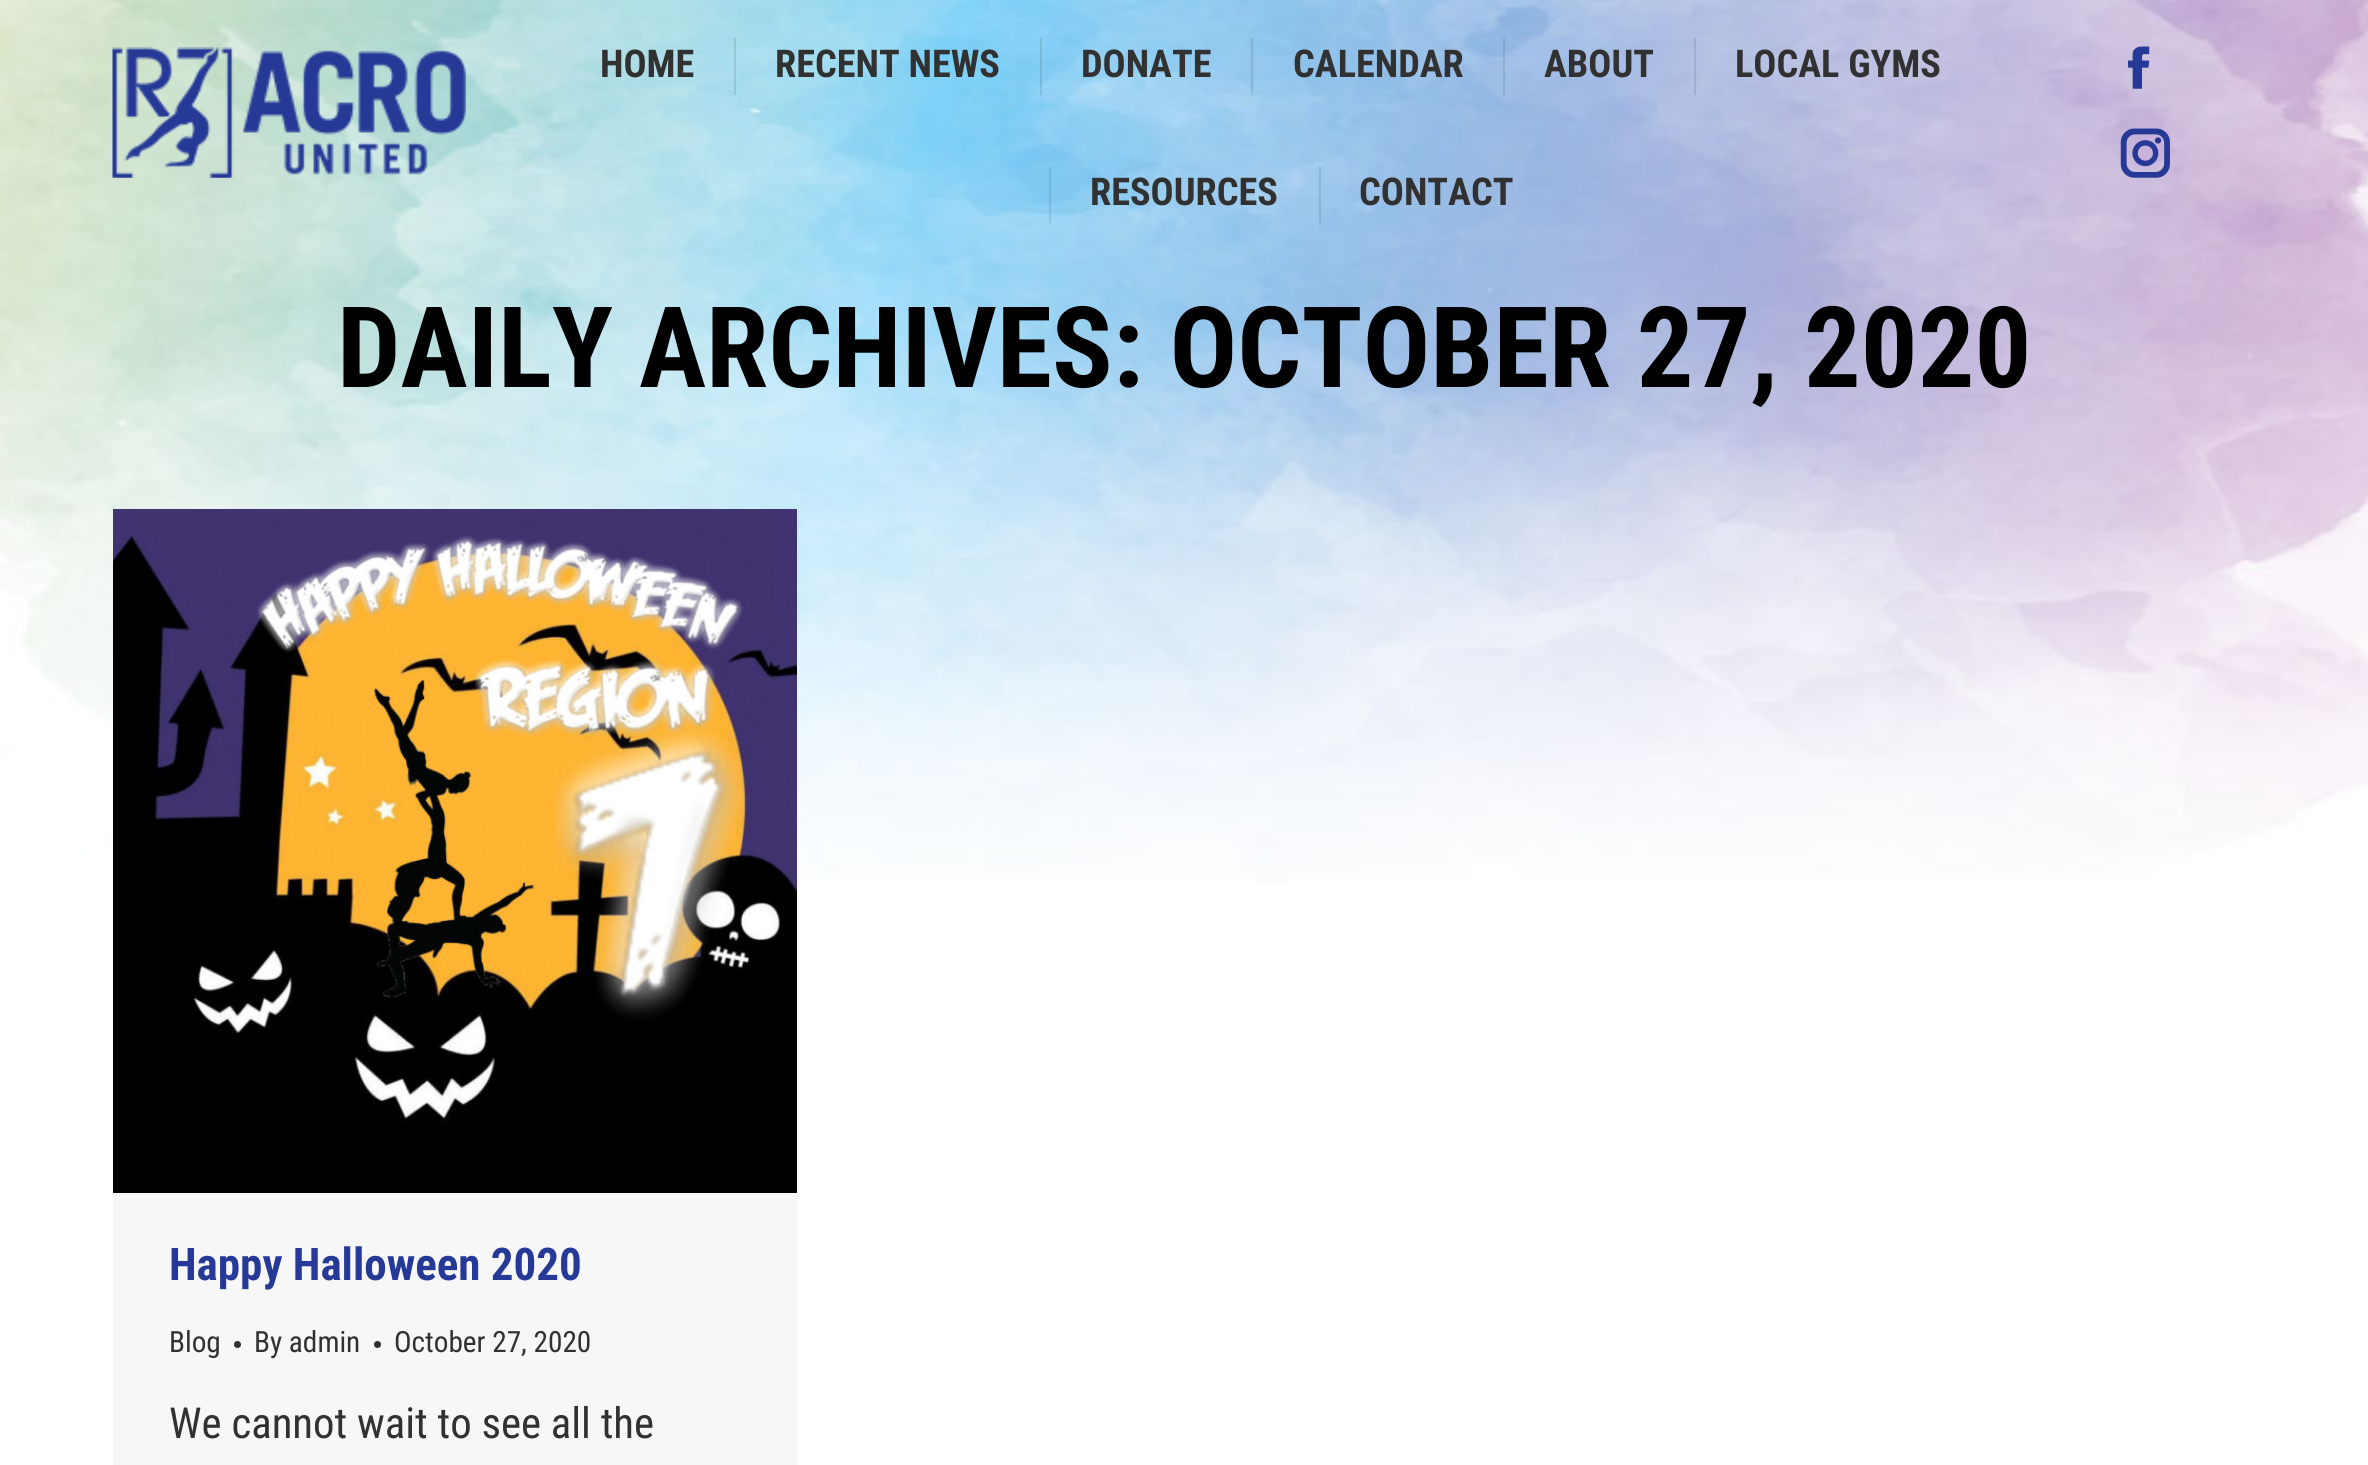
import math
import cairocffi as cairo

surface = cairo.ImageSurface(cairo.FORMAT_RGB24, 2368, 1465)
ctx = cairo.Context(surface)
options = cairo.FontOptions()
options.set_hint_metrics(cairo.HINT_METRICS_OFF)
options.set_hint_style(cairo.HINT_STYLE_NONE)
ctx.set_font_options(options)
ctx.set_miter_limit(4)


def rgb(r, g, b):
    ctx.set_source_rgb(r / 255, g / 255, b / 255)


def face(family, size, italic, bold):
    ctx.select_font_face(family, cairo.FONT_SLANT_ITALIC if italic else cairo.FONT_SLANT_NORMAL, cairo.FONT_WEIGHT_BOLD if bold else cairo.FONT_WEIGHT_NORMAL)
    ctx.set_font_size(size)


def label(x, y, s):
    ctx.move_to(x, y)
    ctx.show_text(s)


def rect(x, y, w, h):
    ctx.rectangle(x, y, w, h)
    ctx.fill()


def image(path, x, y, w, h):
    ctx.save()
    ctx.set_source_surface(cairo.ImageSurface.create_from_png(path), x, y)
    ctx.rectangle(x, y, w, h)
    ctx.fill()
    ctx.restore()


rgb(255, 255, 255)
ctx.paint()
image('image0.png', 0, 0, 2368, 882)
image('image1.png', 112, 47, 354, 131)
face('Roboto Condensed', 38.25, 0, 1)
rgb(49, 49, 49)
label(600, 77, 'HOME')
ctx.set_source_rgba(0.067, 0.067, 0.067, 0.11)
rect(734, 38, 2, 57)
rgb(49, 49, 49)
label(775, 77, 'RECENT NEWS')
ctx.set_source_rgba(0.067, 0.067, 0.067, 0.11)
rect(1040, 38, 2, 57)
rgb(49, 49, 49)
label(1081, 77, 'DONATE')
ctx.set_source_rgba(0.067, 0.067, 0.067, 0.11)
rect(1251, 38, 2, 57)
rgb(49, 49, 49)
label(1293, 77, 'CALENDAR')
ctx.set_source_rgba(0.067, 0.067, 0.067, 0.11)
rect(1503, 38, 2, 57)
rgb(49, 49, 49)
label(1544, 77, 'ABOUT')
rgb(160, 173, 204)
rect(1694, 38, 2, 57)
rgb(49, 49, 49)
label(1735, 77, 'LOCAL GYMS')
ctx.set_source_rgba(0.067, 0.067, 0.067, 0.11)
rect(1049, 167, 2, 56)
rgb(49, 49, 49)
label(1090, 205, 'RESOURCES')
ctx.set_source_rgba(0.067, 0.067, 0.067, 0.11)
rect(1319, 167, 2, 56)
rgb(49, 49, 49)
label(1359, 205, 'CONTACT')
image('image2.png', 2128, 46, 22, 43)
image('image3.png', 2120, 128, 50, 50)
face('Roboto Condensed', 112.5, 0, 1)
rgb(0, 0, 0)
label(337, 387, 'DAILY ARCHIVES: OCTOBER 27, 2020')
rgb(247, 247, 247)
rect(113, 1193, 684, 272)
image('image4.png', 113, 509, 684, 684)
face('Roboto Condensed', 45, 0, 1)
rgb(38, 57, 151)
label(169, 1280, 'Happy Halloween 2020')
face('Roboto Condensed', 29.25, 0, 0)
rgb(49, 49, 49)
label(169, 1352, 'Blog')
ctx.new_path()
ctx.arc(237.5, 1344.5, 3.5, 0, 2 * math.pi)
ctx.fill()
label(254, 1352, 'By admin')
ctx.new_path()
ctx.arc(377.5, 1344.5, 3.5, 0, 2 * math.pi)
ctx.fill()
label(394, 1352, 'October 27, 2020')
face('Roboto Condensed', 42.75, 0, 0)
label(169, 1438, 'We cannot wait to see all the')
surface.write_to_png('render.png')
